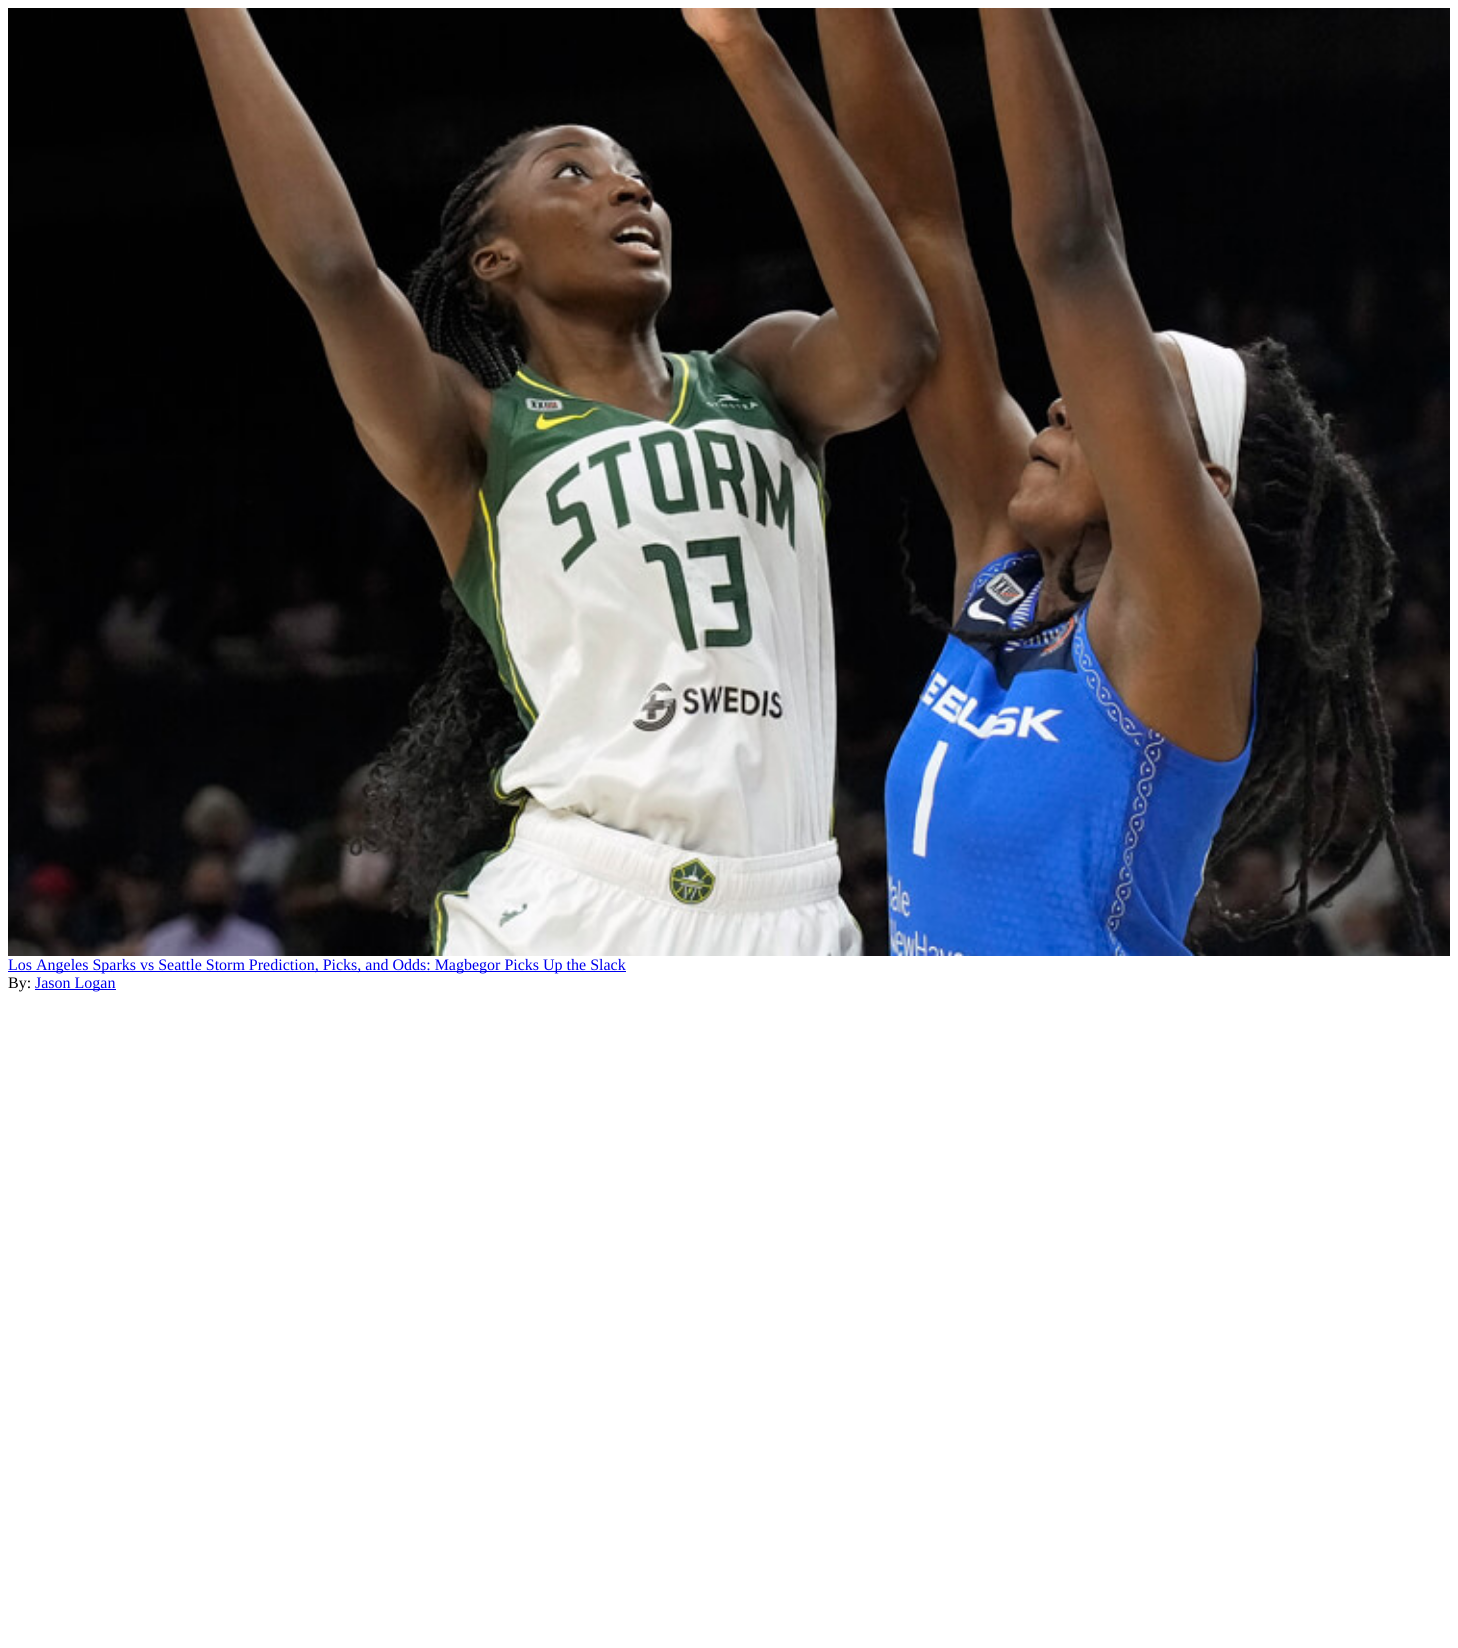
import math
import cairocffi as cairo

surface = cairo.ImageSurface(cairo.FORMAT_RGB24, 1458, 1648)
ctx = cairo.Context(surface)
options = cairo.FontOptions()
options.set_hint_metrics(cairo.HINT_METRICS_OFF)
options.set_hint_style(cairo.HINT_STYLE_NONE)
ctx.set_font_options(options)
ctx.set_miter_limit(4)


def rgb(r, g, b):
    ctx.set_source_rgb(r / 255, g / 255, b / 255)


def face(family, size, italic, bold):
    ctx.select_font_face(family, cairo.FONT_SLANT_ITALIC if italic else cairo.FONT_SLANT_NORMAL, cairo.FONT_WEIGHT_BOLD if bold else cairo.FONT_WEIGHT_NORMAL)
    ctx.set_font_size(size)


def label(x, y, s):
    ctx.move_to(x, y)
    ctx.show_text(s)


def rect(x, y, w, h):
    ctx.rectangle(x, y, w, h)
    ctx.fill()


def image(path, x, y, w, h):
    ctx.save()
    ctx.set_source_surface(cairo.ImageSurface.create_from_png(path), x, y)
    ctx.rectangle(x, y, w, h)
    ctx.fill()
    ctx.restore()


rgb(255, 255, 255)
ctx.paint()
image('image0.png', 8, 8, 1442, 948)
rgb(0, 0, 238)
rect(8, 971, 618, 1)
face('Liberation Serif', 16, 0, 0)
label(8, 970, 'Los Angeles Sparks vs Seattle Storm Prediction, Picks, and Odds: Magbegor Picks Up the Slack')
rgb(0, 0, 0)
label(8, 988, 'By:')
rgb(0, 0, 238)
rect(35, 989, 81, 1)
label(35, 988, 'Jason Logan')
surface.write_to_png('render.png')
